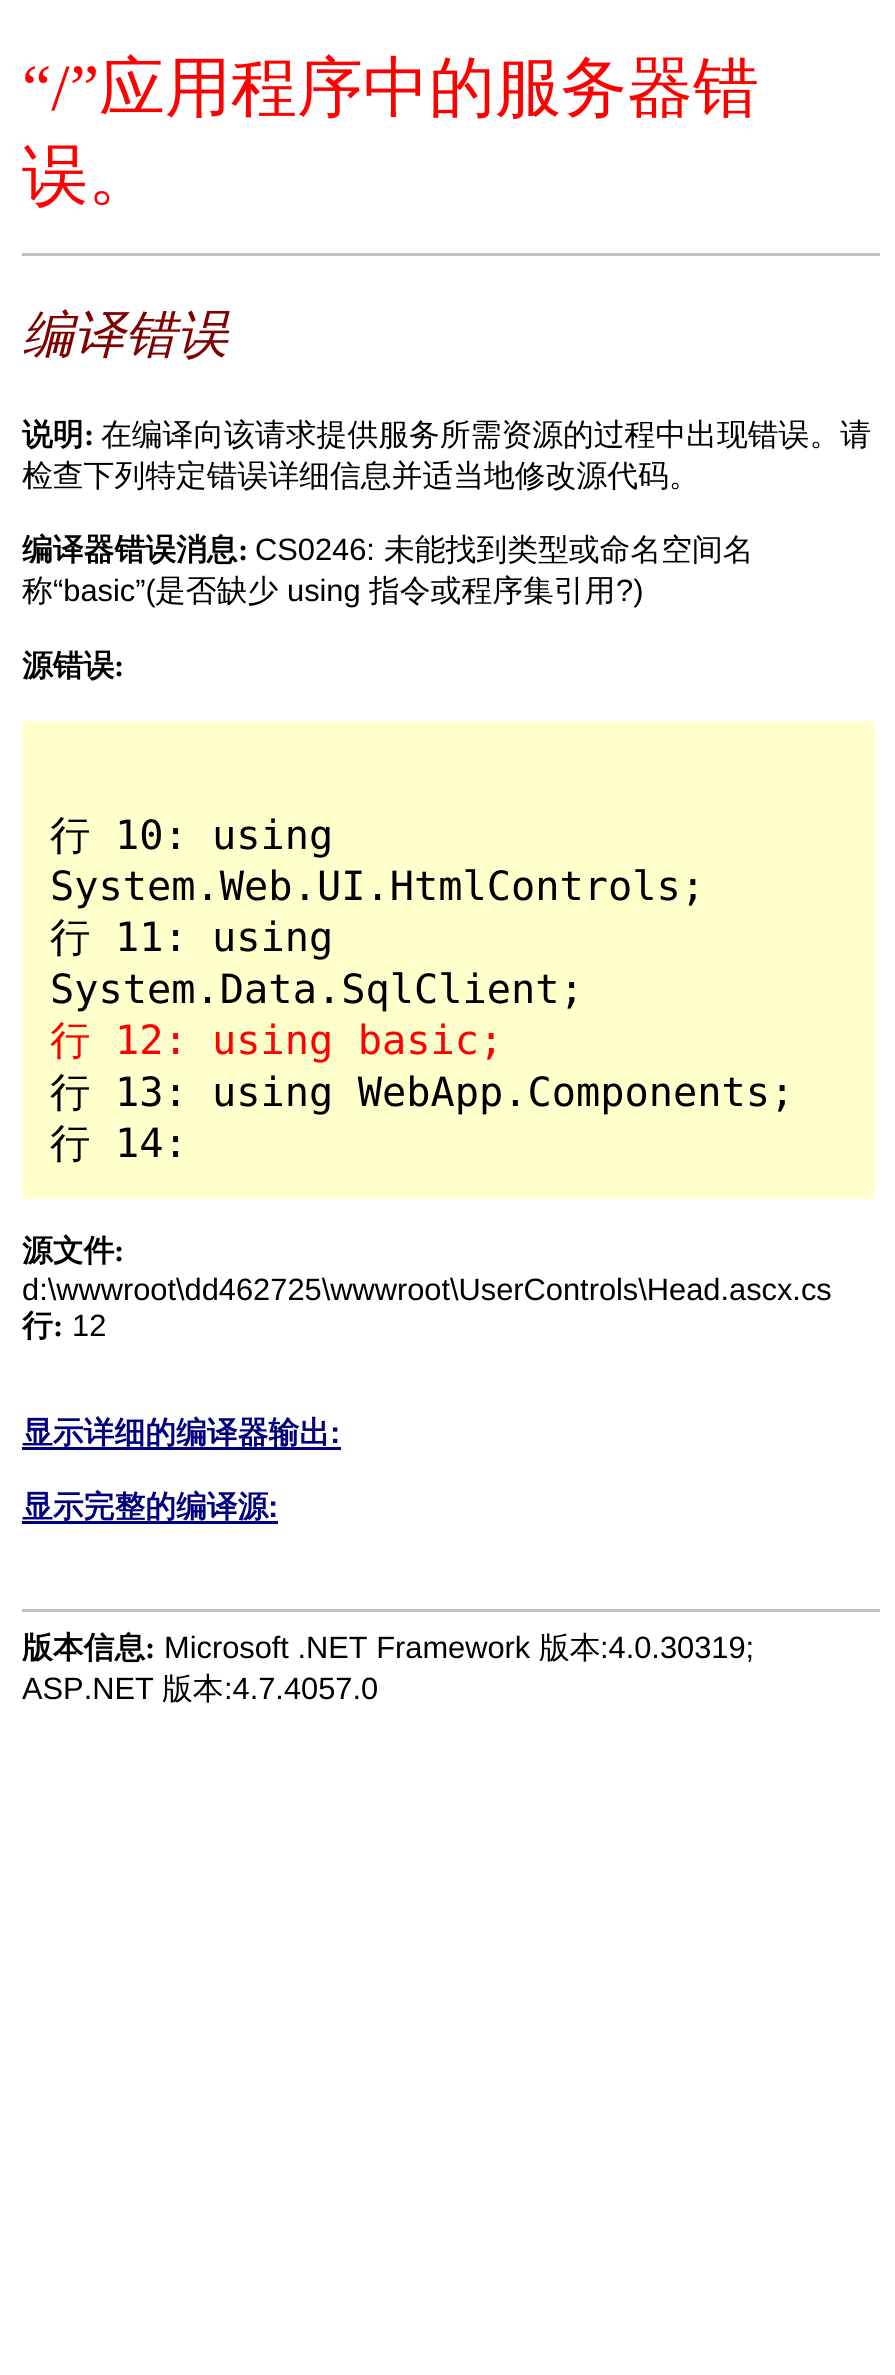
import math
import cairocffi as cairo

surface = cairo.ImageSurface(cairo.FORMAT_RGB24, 895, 2375)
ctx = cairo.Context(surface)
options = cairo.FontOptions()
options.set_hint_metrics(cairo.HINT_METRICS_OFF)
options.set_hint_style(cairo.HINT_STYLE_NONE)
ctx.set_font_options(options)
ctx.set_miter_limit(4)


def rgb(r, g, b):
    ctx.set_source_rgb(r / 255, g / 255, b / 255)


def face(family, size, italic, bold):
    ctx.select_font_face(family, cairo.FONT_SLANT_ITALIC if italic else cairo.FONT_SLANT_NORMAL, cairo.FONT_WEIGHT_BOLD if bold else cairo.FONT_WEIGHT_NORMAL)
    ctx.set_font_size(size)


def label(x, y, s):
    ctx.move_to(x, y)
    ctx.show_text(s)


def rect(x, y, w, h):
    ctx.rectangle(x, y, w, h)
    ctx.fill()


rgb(255, 255, 255)
ctx.paint()
face('Liberation Serif', 66, 0, 0)
rgb(255, 0, 0)
label(22, 110, '“/”')
face('WenQuanYi Zen Hei Medium', 66, 0, 0)
label(99, 110, '应用程序中的服务器错')
label(22, 198, '误。')
rgb(192, 192, 192)
rect(22, 253, 858, 3)
face('WenQuanYi Zen Hei Medium', 51.5, 1, 0)
rgb(128, 0, 0)
label(22, 352, '编译错误')
face('WenQuanYi Zen Hei', 30.8, 0, 1)
rgb(0, 0, 0)
label(22, 445, '说明')
face('Liberation Serif', 30.8, 0, 1)
label(84, 445, ':')
face('WenQuanYi Zen Hei Medium', 30.8, 0, 0)
label(101, 445, '在编译向该请求提供服务所需资源的过程中出现错误。请')
label(22, 486, '检查下列特定错误详细信息并适当地修改源代码。')
face('WenQuanYi Zen Hei', 30.8, 0, 1)
label(22, 560, '编译器错误消息')
face('Liberation Serif', 30.8, 0, 1)
label(238, 560, ':')
face('Liberation Sans', 30.8, 0, 0)
label(255, 560, 'CS0246:')
face('WenQuanYi Zen Hei Medium', 30.8, 0, 0)
label(384, 560, '未能找到类型或命名空间名')
label(22, 601, '称')
face('Liberation Sans', 30.8, 0, 0)
label(53, 601, '“basic”(')
face('WenQuanYi Zen Hei Medium', 30.8, 0, 0)
label(155, 601, '是否缺少')
face('Liberation Sans', 30.8, 0, 0)
label(287, 601, 'using')
face('WenQuanYi Zen Hei Medium', 30.8, 0, 0)
label(369, 601, '指令或程序集引用')
face('Liberation Sans', 30.8, 0, 0)
label(616, 601, '?)')
face('WenQuanYi Zen Hei', 30.8, 0, 1)
label(22, 676, '源错误')
face('Liberation Serif', 30.8, 0, 1)
label(114, 676, ':')
rgb(255, 255, 204)
rect(22, 721, 853, 478)
face('WenQuanYi Zen Hei Medium', 40.3, 0, 0)
rgb(0, 0, 0)
label(50, 849, '行')
face('DejaVu Sans Mono', 40.3, 0, 0)
label(115, 849, '10: using')
label(50, 900, 'System.Web.UI.HtmlControls;')
face('WenQuanYi Zen Hei Medium', 40.3, 0, 0)
label(50, 951, '行')
face('DejaVu Sans Mono', 40.3, 0, 0)
label(115, 951, '11: using')
label(50, 1003, 'System.Data.SqlClient;')
face('WenQuanYi Zen Hei Medium', 40.3, 0, 0)
rgb(255, 0, 0)
label(50, 1054, '行')
face('DejaVu Sans Mono', 40.3, 0, 0)
label(115, 1054, '12: using basic;')
face('WenQuanYi Zen Hei Medium', 40.3, 0, 0)
rgb(0, 0, 0)
label(50, 1106, '行')
face('DejaVu Sans Mono', 40.3, 0, 0)
label(115, 1106, '13: using WebApp.Components;')
face('WenQuanYi Zen Hei Medium', 40.3, 0, 0)
label(50, 1157, '行')
face('DejaVu Sans Mono', 40.3, 0, 0)
label(115, 1157, '14:')
face('WenQuanYi Zen Hei', 30.8, 0, 1)
label(22, 1261, '源文件')
face('Liberation Serif', 30.8, 0, 1)
label(114, 1261, ':')
face('Liberation Sans', 30.8, 0, 0)
label(22, 1300, 'd:\\wwwroot\\dd462725\\wwwroot\\UserControls\\Head.ascx.cs')
face('WenQuanYi Zen Hei', 30.8, 0, 1)
label(22, 1336, '行')
face('Liberation Serif', 30.8, 0, 1)
label(53, 1336, ':')
face('Liberation Sans', 30.8, 0, 0)
label(72, 1336, '12')
rgb(0, 0, 128)
rect(22, 1447, 319, 3)
face('WenQuanYi Zen Hei', 30.8, 0, 1)
label(22, 1443, '显示详细的编译器输出')
face('Liberation Sans', 30.8, 0, 1)
label(330, 1443, ':')
face('WenQuanYi Zen Hei', 30.8, 0, 1)
label(22, 1517, '显示完整的编译源')
face('Liberation Sans', 30.8, 0, 1)
label(268, 1517, ':')
rect(22, 1521, 256, 3)
rgb(192, 192, 192)
rect(22, 1609, 858, 3)
face('WenQuanYi Zen Hei', 30.8, 0, 1)
rgb(0, 0, 0)
label(22, 1658, '版本信息')
face('Liberation Serif', 30.8, 0, 1)
label(145, 1658, ':')
face('Liberation Sans', 30.8, 0, 0)
label(164, 1658, 'Microsoft .NET Framework')
face('WenQuanYi Zen Hei Medium', 30.8, 0, 0)
label(539, 1658, '版本')
face('Liberation Sans', 30.8, 0, 0)
label(600, 1658, ':4.0.30319;')
label(22, 1699, 'ASP.NET')
face('WenQuanYi Zen Hei Medium', 30.8, 0, 0)
label(162, 1699, '版本')
face('Liberation Sans', 30.8, 0, 0)
label(224, 1699, ':4.7.4057.0')
surface.write_to_png('render.png')
